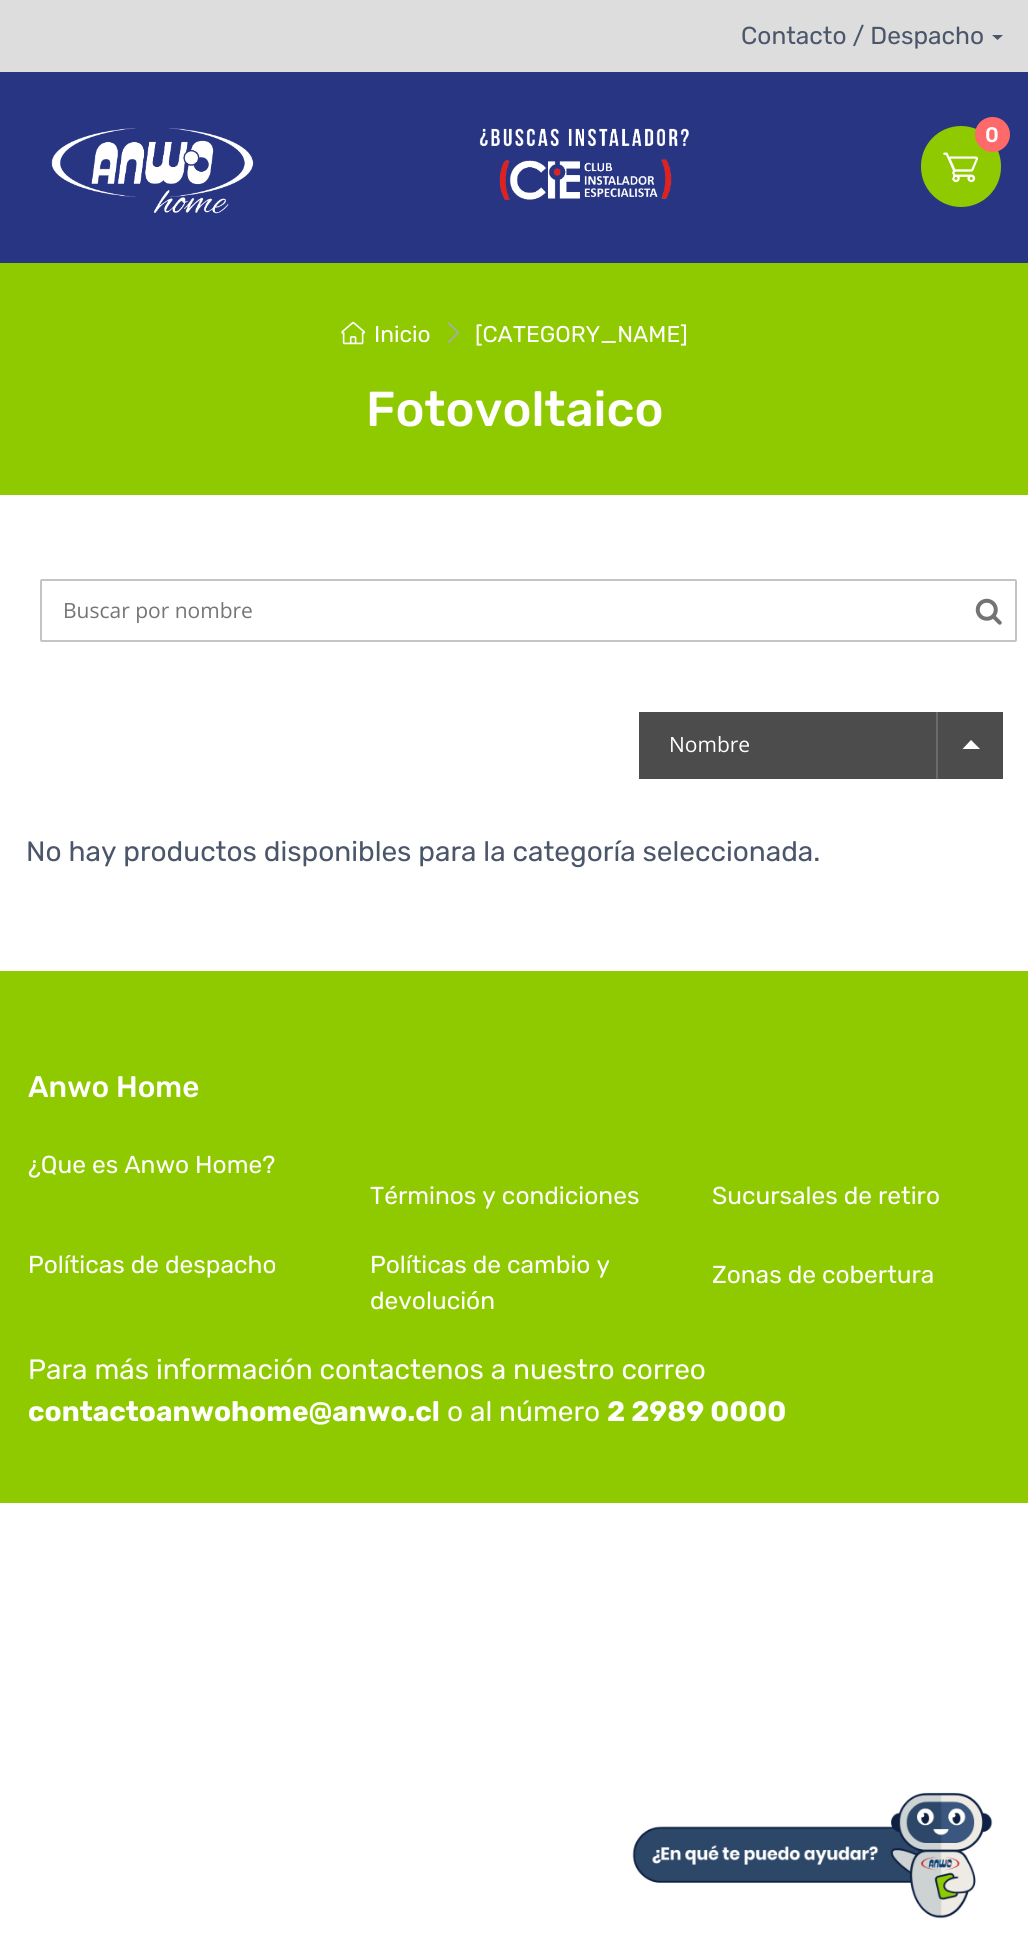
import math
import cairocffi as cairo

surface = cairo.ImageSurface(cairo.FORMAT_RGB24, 1028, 1956)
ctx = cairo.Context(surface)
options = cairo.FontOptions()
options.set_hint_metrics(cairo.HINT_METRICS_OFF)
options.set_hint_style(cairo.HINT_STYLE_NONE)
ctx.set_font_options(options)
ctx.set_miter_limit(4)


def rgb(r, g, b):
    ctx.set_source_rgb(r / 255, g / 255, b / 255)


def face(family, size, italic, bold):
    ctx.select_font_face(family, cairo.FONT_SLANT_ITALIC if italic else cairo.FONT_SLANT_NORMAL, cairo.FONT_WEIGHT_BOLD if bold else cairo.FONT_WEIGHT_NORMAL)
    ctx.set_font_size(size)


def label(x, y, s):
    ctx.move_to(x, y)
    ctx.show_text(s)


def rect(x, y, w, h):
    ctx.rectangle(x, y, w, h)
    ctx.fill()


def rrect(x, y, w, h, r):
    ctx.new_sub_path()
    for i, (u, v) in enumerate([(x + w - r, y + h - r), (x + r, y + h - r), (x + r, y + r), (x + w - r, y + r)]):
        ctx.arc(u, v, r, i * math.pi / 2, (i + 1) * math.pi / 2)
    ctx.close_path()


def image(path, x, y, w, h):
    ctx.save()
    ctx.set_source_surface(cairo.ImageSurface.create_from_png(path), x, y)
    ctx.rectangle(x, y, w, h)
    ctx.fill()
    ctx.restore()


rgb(255, 255, 255)
ctx.paint()
rgb(221, 221, 221)
rect(0, 0, 1028, 72)
face('Rubik', 24.5, 0, 0)
rgb(75, 86, 107)
label(741, 44, 'Contacto / Despacho')
ctx.new_path()
ctx.move_to(992, 35)
ctx.line_to(1003, 35)
ctx.line_to(997.5, 40)
ctx.close_path()
ctx.fill()
rgb(40, 53, 131)
rect(0, 72, 1028, 191)
image('image0.png', 51, 128, 203, 86)
image('image1.png', 479, 128, 210, 73)
rgb(143, 202, 0)
rrect(921, 126, 80, 81, 40)
ctx.fill()
rgb(254, 105, 106)
ctx.arc(992.5, 134.5, 17.5, 0, 2 * math.pi)
ctx.fill()
face('Rubik Medium', 21, 0, 0)
rgb(255, 255, 255)
label(985, 142, '0')
image('image2.png', 943, 152, 35, 31)
rgb(143, 202, 0)
rect(0, 263, 1028, 232)
image('image3.png', 341, 321, 24, 24)
face('Rubik', 22.75, 0, 0)
rgb(255, 255, 255)
label(374, 342, 'Inicio')
image('image4.png', 447, 322, 13, 21)
label(475, 342, '[CATEGORY_NAME]')
face('Rubik Medium', 49, 0, 0)
label(366, 426, 'Fotovoltaico')
rrect(41, 580, 975, 61, 1)
rgb(198, 195, 196)
ctx.stroke()
face('Open Sans', 21, 0, 0)
rgb(117, 117, 117)
label(63, 618, 'Buscar por nombre')
image('image5.png', 975, 598, 27, 27)
rgb(77, 76, 77)
rect(639, 712, 297, 67)
rgb(255, 255, 255)
label(669, 752, 'Nombre')
rgb(77, 76, 77)
rect(938, 712, 65, 67)
rgb(107, 106, 106)
rect(936, 712, 2, 67)
rgb(255, 255, 255)
ctx.new_path()
ctx.move_to(980, 749)
ctx.line_to(962.5, 749)
ctx.line_to(971, 740)
ctx.close_path()
ctx.fill()
face('Rubik', 28, 0, 0)
rgb(75, 86, 107)
label(26, 861, 'No hay productos disponibles para la categoría seleccionada.')
rgb(143, 202, 0)
rect(0, 971, 1028, 532)
face('Rubik Medium', 29.75, 0, 0)
rgb(255, 255, 255)
label(28, 1097, 'Anwo Home')
face('Rubik', 24.5, 0, 0)
label(28, 1173, '¿Que es Anwo Home?')
label(370, 1204, 'Términos y condiciones')
label(712, 1204, 'Sucursales de retiro')
label(28, 1273, 'Políticas de despacho')
label(370, 1273, 'Políticas de cambio y')
label(370, 1309, 'devolución')
label(712, 1283, 'Zonas de cobertura')
face('Rubik', 28, 0, 0)
label(28, 1379, 'Para más información contactenos a nuestro correo')
face('Rubik', 28, 0, 1)
label(28, 1421, 'contactoanwohome@anwo.cl')
face('Rubik', 28, 0, 0)
label(447, 1421, 'o al número')
face('Rubik', 28, 0, 1)
label(607, 1421, '2 2989 0000')
image('image6.png', 632, 1792, 361, 127)
surface.write_to_png('render.png')
